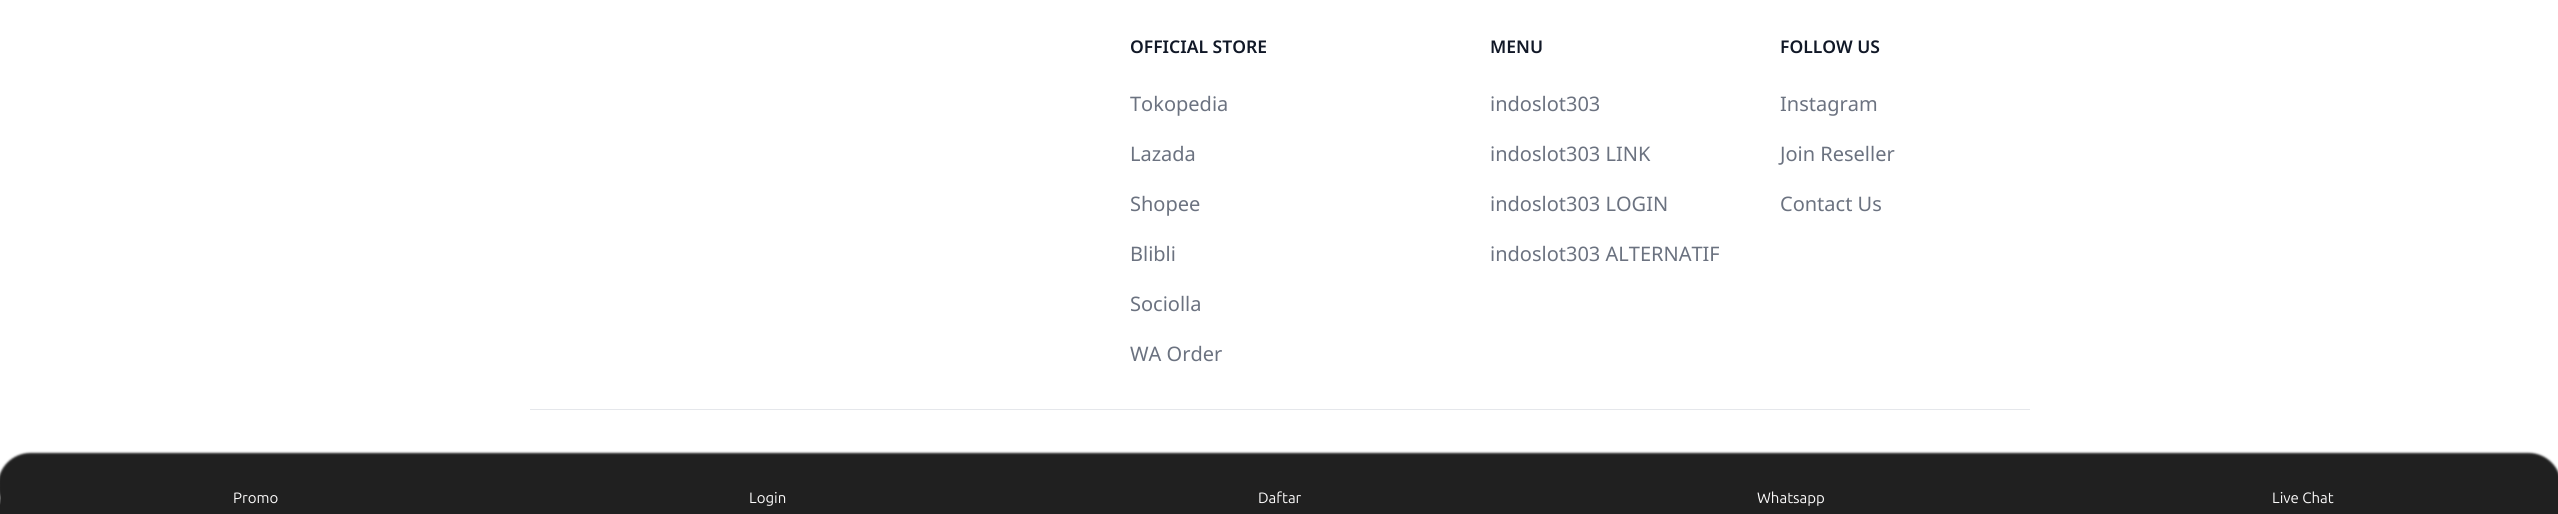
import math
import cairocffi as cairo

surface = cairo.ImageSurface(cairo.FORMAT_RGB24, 2558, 514)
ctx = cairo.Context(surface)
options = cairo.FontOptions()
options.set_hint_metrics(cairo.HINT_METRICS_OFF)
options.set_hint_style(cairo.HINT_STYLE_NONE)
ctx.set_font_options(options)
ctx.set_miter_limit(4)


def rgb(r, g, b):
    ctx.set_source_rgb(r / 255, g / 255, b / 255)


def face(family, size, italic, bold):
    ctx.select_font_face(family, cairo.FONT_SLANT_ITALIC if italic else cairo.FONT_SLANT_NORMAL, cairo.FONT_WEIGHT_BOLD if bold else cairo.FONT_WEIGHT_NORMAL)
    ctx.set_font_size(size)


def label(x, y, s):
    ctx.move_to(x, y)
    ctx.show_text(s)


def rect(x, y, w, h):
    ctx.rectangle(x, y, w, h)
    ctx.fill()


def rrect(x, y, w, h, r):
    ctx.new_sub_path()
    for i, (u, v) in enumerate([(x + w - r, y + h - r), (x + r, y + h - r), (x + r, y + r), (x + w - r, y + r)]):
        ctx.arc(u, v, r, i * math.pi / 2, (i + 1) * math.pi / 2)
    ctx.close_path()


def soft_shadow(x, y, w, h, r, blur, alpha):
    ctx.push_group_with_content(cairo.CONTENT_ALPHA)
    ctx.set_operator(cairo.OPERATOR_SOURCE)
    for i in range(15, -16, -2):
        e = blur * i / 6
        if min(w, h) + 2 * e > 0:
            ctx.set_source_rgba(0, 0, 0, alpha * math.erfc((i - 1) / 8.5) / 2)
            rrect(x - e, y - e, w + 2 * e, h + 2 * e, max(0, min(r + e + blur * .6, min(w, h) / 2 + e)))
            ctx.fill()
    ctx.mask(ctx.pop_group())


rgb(255, 255, 255)
ctx.paint()
face('Noto Sans SemiBold', 17.5, 0, 0)
rgb(17, 24, 39)
label(1130, 53, 'OFFICIAL STORE')
face('Noto Sans', 20, 0, 0)
rgb(107, 114, 128)
label(1130, 111, 'Tokopedia')
label(1130, 161, 'Lazada')
label(1130, 211, 'Shopee')
label(1130, 261, 'Blibli')
label(1130, 311, 'Sociolla')
label(1130, 361, 'WA Order')
face('Noto Sans SemiBold', 17.5, 0, 0)
rgb(17, 24, 39)
label(1490, 53, 'MENU')
face('Noto Sans', 20, 0, 0)
rgb(107, 114, 128)
label(1490, 111, 'indoslot303')
label(1490, 161, 'indoslot303 LINK')
label(1490, 211, 'indoslot303 LOGIN')
label(1490, 261, 'indoslot303 ALTERNATIF')
face('Noto Sans SemiBold', 17.5, 0, 0)
rgb(17, 24, 39)
label(1780, 53, 'FOLLOW US')
face('Noto Sans', 20, 0, 0)
rgb(107, 114, 128)
label(1780, 111, 'Instagram')
label(1780, 161, 'Join Reseller')
label(1780, 211, 'Contact Us')
rgb(229, 231, 235)
rect(530, 409, 1500, 1)
rgb(32, 32, 32)
soft_shadow(-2, 453, 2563, 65, 53, 1, 1)
rgb(32, 32, 32)
ctx.new_path()
ctx.move_to(50, 455)
ctx.line_to(2509, 455)
ctx.curve_to(2536.5, 455, 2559, 477.5, 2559, 505)
ctx.line_to(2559, 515)
ctx.line_to(0, 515)
ctx.line_to(0, 505)
ctx.curve_to(0, 477.5, 22.5, 455, 50, 455)
ctx.close_path()
ctx.fill()
face('Ubuntu', 15, 0, 0)
rgb(252, 251, 251)
label(233, 503, 'Promo')
label(749, 503, 'Login')
label(1258, 503, 'Daftar')
label(1757, 503, 'Whatsapp')
label(2272, 503, 'Live Chat')
surface.write_to_png('render.png')
